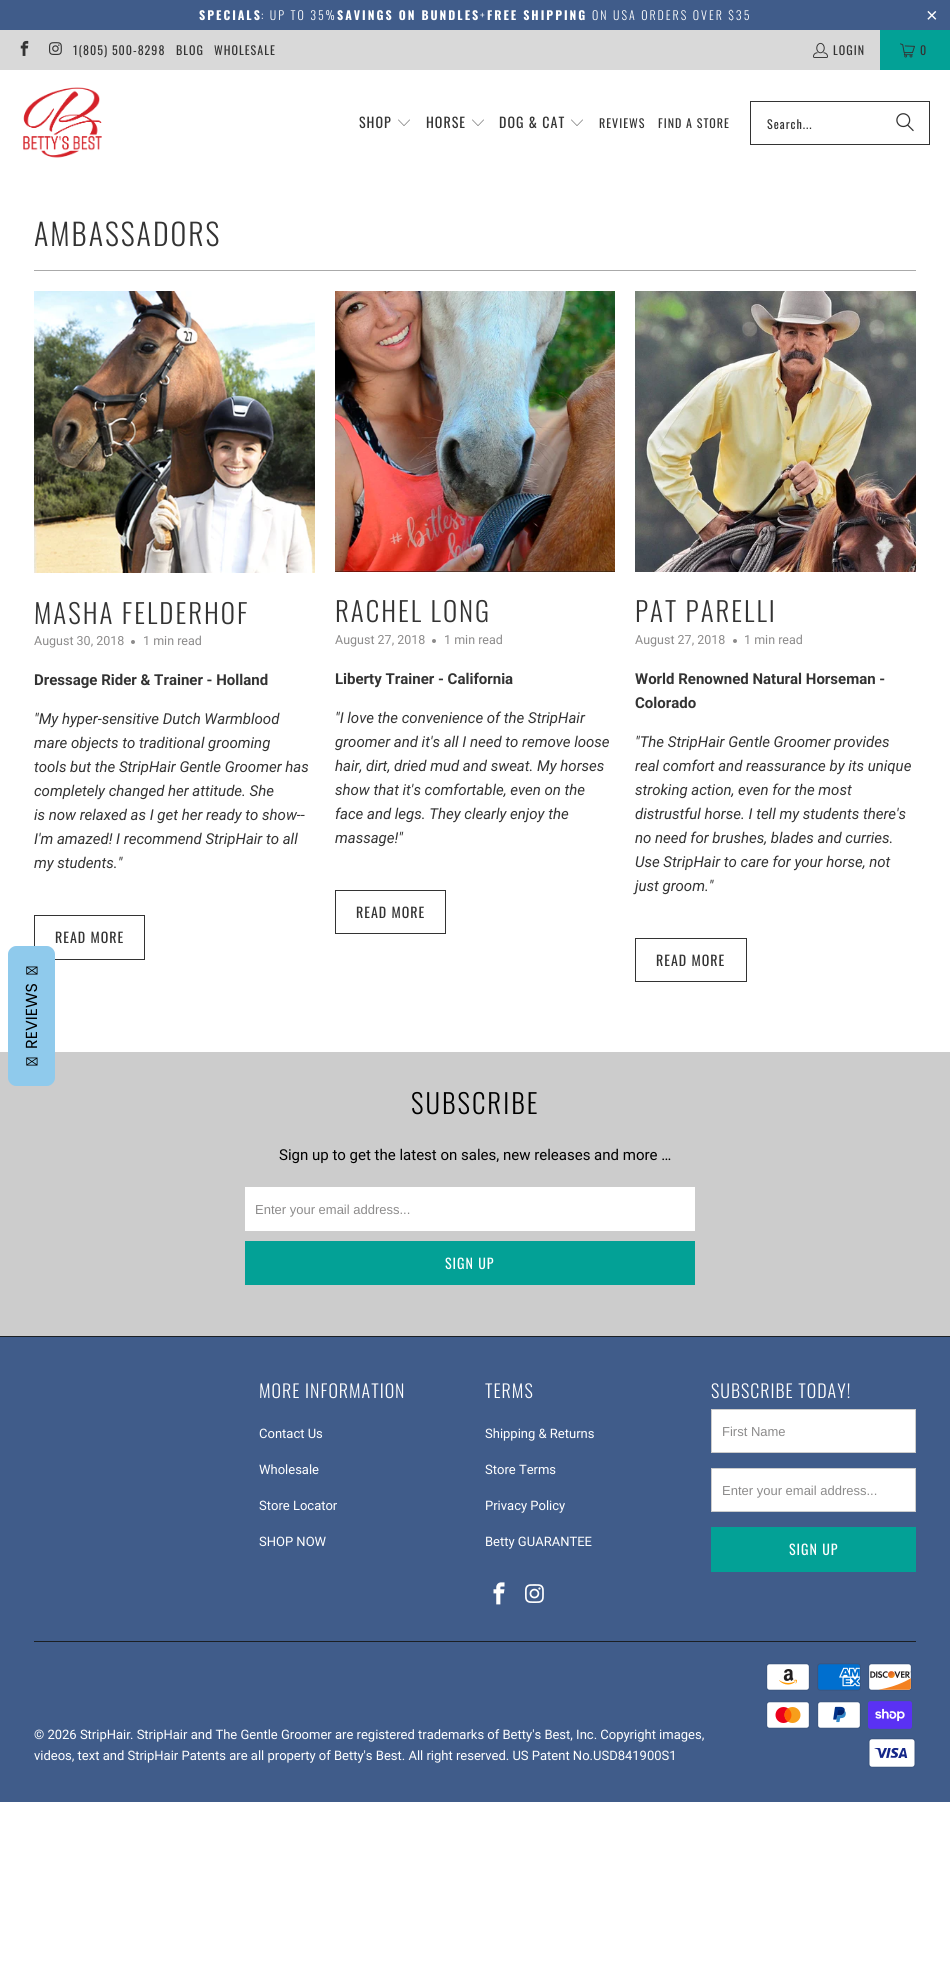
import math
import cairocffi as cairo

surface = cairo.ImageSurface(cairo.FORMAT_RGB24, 950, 1985)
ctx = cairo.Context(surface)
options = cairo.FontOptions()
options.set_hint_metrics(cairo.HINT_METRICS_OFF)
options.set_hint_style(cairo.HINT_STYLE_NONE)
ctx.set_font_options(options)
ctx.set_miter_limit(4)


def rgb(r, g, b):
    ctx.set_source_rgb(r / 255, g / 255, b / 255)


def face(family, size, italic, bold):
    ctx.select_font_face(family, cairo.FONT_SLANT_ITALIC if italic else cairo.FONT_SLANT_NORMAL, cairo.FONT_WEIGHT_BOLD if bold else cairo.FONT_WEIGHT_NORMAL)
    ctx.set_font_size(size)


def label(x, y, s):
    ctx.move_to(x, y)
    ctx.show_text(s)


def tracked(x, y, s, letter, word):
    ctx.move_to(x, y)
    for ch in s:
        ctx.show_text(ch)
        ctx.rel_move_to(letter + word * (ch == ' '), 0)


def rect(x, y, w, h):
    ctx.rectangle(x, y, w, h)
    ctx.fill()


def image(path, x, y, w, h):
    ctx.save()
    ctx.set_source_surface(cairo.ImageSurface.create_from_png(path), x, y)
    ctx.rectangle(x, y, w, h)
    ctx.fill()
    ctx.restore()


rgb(255, 255, 255)
ctx.paint()
rgb(64, 92, 138)
rect(0, 0, 950, 30)
face('Oswald', 12, 0, 1)
rgb(255, 255, 255)
tracked(199, 20, 'SPECIALS', 2, 0)
face('Oswald Light', 12, 0, 0)
tracked(261, 20, ': UP TO 35%', 2, 0)
face('Oswald', 12, 0, 1)
tracked(337, 20, 'SAVINGS ON BUNDLES', 2, 0)
face('Oswald Light', 12, 0, 0)
tracked(480, 20, '+', 2, 0)
face('Oswald', 12, 0, 1)
tracked(487, 20, 'FREE SHIPPING', 2, 0)
face('Oswald Light', 12, 0, 0)
tracked(592, 20, 'ON USA ORDERS OVER $35', 2, 0)
face('Liberation Sans', 20, 0, 0)
tracked(926, 22, '×', 2, 0)
rgb(217, 217, 217)
rect(0, 30, 880, 40)
image('image0.png', 20, 40, 9, 16)
image('image1.png', 49, 42, 13, 13)
face('Oswald', 12, 0, 0)
rgb(51, 51, 51)
tracked(73, 55, '1(805) 500-8298', 1, 0)
tracked(176, 55, 'BLOG', 1, 0)
tracked(214, 55, 'WHOLESALE', 1, 0)
image('image2.png', 813, 42, 15, 16)
tracked(833, 55, 'LOGIN', 1, 0)
rgb(3, 161, 150)
rect(880, 30, 70, 40)
image('image3.png', 900, 43, 15, 15)
rgb(51, 51, 51)
tracked(920, 55, '0', 1, 0)
image('image4.png', 23, 87, 79, 71)
face('Oswald', 14, 0, 0)
tracked(359, 128, 'SHOP', 1, 0)
image('image5.png', 398, 119, 12, 7)
tracked(426, 128, 'HORSE', 1, 0)
image('image5.png', 472, 119, 12, 7)
tracked(499, 128, 'DOG & CAT', 1, 0)
image('image5.png', 571, 119, 12, 7)
face('Oswald', 12, 0, 0)
tracked(599, 128, 'REVIEWS', 1, 0)
tracked(658, 128, 'FIND A STORE', 1, 0)
ctx.rectangle(750.5, 101.5, 179, 43)
ctx.set_line_width(1)
ctx.stroke()
tracked(767, 129, 'Search...', 1, 0)
image('image6.png', 896, 113, 18, 19)
ctx.rectangle(34.5, 915.5, 110, 44)
ctx.stroke()
rgb(204, 204, 204)
rect(0, 1052, 950, 284)
rgb(143, 202, 236)
ctx.new_path()
ctx.move_to(8, 1078)
ctx.line_to(8, 954)
ctx.curve_to(8, 950, 12, 946, 16, 946)
ctx.line_to(47, 946)
ctx.curve_to(51, 946, 55, 950, 55, 954)
ctx.line_to(55, 1078)
ctx.curve_to(55, 1082, 51, 1086, 47, 1086)
ctx.line_to(16, 1086)
ctx.curve_to(12, 1086, 8, 1082, 8, 1078)
ctx.close_path()
ctx.fill()
image('image7.png', 26, 966, 12, 9)
face('Poppins', 16, 0, 0)
rgb(0, 0, 0)
ctx.save()
ctx.translate(37, 1049)
ctx.rotate(-90 * math.pi / 180)
label(0, 0, 'REVIEWS')
ctx.restore()
image('image7.png', 26, 1057, 12, 9)
face('Oswald Light', 30, 0, 0)
rgb(51, 51, 51)
tracked(34, 246, 'AMBASSADORS', 2, 0)
rgb(170, 170, 170)
rect(34, 270, 882, 1)
image('image8.png', 34, 291, 281, 282)
face('Oswald Light', 27, 0, 0)
rgb(51, 51, 51)
tracked(34, 624, 'MASHA FELDERHOF', 2, 0)
face('Roboto', 12.5, 0, 0)
rgb(140, 139, 139)
label(34, 645, 'August 30, 2018')
ctx.new_path()
ctx.arc(133, 642, 2, 0, 2 * math.pi)
ctx.fill()
label(143, 645, '1 min read')
face('Roboto', 15, 0, 1)
rgb(51, 51, 51)
label(34, 685, 'Dressage Rider & Trainer - Holland')
face('Roboto', 15, 1, 0)
label(34, 724, '"My hyper-sensitive Dutch Warmblood')
label(34, 748, 'mare objects to traditional grooming')
label(34, 772, 'tools but the StripHair Gentle Groomer has')
label(34, 796, 'completely changed her attitude. She')
label(34, 820, 'is now relaxed as I get her ready to show--')
label(34, 844, 'I\'m amazed! I recommend StripHair to all')
label(34, 868, 'my students."')
face('Oswald', 14, 0, 0)
tracked(55, 943, 'READ MORE', 1, 0)
image('image9.png', 335, 291, 280, 281)
face('Oswald Light', 27, 0, 0)
tracked(335, 622, 'RACHEL LONG', 2, 0)
face('Roboto', 12.5, 0, 0)
rgb(140, 139, 139)
label(335, 644, 'August 27, 2018')
ctx.new_path()
ctx.arc(434, 641, 2, 0, 2 * math.pi)
ctx.fill()
label(444, 644, '1 min read')
face('Roboto', 15, 0, 1)
rgb(51, 51, 51)
label(335, 684, 'Liberty Trainer - California')
face('Roboto', 15, 1, 0)
label(335, 723, '"I love the convenience of the StripHair')
label(335, 747, 'groomer and it\'s all I need to remove loose')
label(335, 771, 'hair, dirt, dried mud and sweat. My horses')
label(335, 795, 'show that it\'s comfortable, even on the')
label(335, 819, 'face and legs. They clearly enjoy the')
label(335, 843, 'massage!"')
ctx.rectangle(335.5, 890.5, 110, 43)
ctx.stroke()
face('Oswald', 14, 0, 0)
tracked(356, 918, 'READ MORE', 1, 0)
image('image10.png', 635, 291, 281, 281)
face('Oswald Light', 27, 0, 0)
tracked(635, 622, 'PAT PARELLI', 2, 0)
face('Roboto', 12.5, 0, 0)
rgb(140, 139, 139)
label(635, 644, 'August 27, 2018')
ctx.new_path()
ctx.arc(735, 641, 2, 0, 2 * math.pi)
ctx.fill()
label(744, 644, '1 min read')
face('Roboto', 15, 0, 1)
rgb(51, 51, 51)
label(635, 684, 'World Renowned Natural Horseman -')
label(635, 708, 'Colorado')
face('Roboto', 15, 1, 0)
label(635, 747, '"The StripHair Gentle Groomer provides')
label(635, 771, 'real comfort and reassurance by its unique')
label(635, 795, 'stroking action, even for the most')
label(635, 819, 'distrustful horse. I tell my students there\'s')
label(635, 843, 'no need for brushes, blades and curries.')
label(635, 867, 'Use StripHair to care for your horse, not')
label(635, 891, 'just groom."')
ctx.rectangle(635.5, 938.5, 111, 43)
ctx.stroke()
face('Oswald', 14, 0, 0)
tracked(656, 966, 'READ MORE', 1, 0)
face('Oswald Light', 27, 0, 0)
rgb(0, 0, 0)
tracked(411, 1114, 'SUBSCRIBE', 2, 0)
face('Roboto', 15, 0, 0)
label(279, 1160, 'Sign up to get the latest on sales, new releases and more …')
rgb(255, 255, 255)
rect(245, 1187, 450, 44)
face('Liberation Sans', 13, 0, 0)
rgb(140, 139, 139)
label(255, 1214, 'Enter your email address...')
rgb(3, 161, 150)
rect(245, 1241, 450, 44)
face('Oswald', 14, 0, 0)
rgb(255, 255, 255)
tracked(445, 1269, 'SIGN UP', 1, 0)
rgb(64, 92, 138)
rect(0, 1337, 950, 465)
rgb(27, 31, 35)
rect(0, 1336, 950, 1)
face('Oswald Light', 18, 0, 0)
rgb(255, 255, 255)
tracked(259, 1398, 'MORE INFORMATION', 1, 0)
face('Roboto', 13, 0, 0)
label(259, 1438, 'Contact Us')
label(259, 1474, 'Wholesale')
label(259, 1510, 'Store Locator')
label(259, 1546, 'SHOP NOW')
face('Oswald Light', 18, 0, 0)
tracked(485, 1398, 'TERMS', 1, 0)
face('Roboto', 13, 0, 0)
label(485, 1438, 'Shipping & Returns')
label(485, 1474, 'Store Terms')
label(485, 1510, 'Privacy Policy')
label(485, 1546, 'Betty GUARANTEE')
image('image11.png', 493, 1582, 12, 23)
image('image12.png', 525, 1584, 19, 19)
face('Oswald Light', 18, 0, 0)
tracked(711, 1398, 'SUBSCRIBE TODAY!', 1, 0)
ctx.rectangle(711.5, 1409.5, 204, 43)
ctx.fill_preserve()
rgb(204, 204, 204)
ctx.stroke()
face('Liberation Sans', 13, 0, 0)
rgb(140, 139, 139)
label(722, 1436, 'First Name')
rgb(255, 255, 255)
ctx.rectangle(711.5, 1468.5, 204, 43)
ctx.fill_preserve()
rgb(204, 204, 204)
ctx.stroke()
rgb(140, 139, 139)
label(722, 1495, 'Enter your email address...')
rgb(3, 161, 150)
rect(711, 1527, 205, 45)
face('Oswald', 14, 0, 0)
rgb(255, 255, 255)
tracked(789, 1555, 'SIGN UP', 1, 0)
rgb(27, 31, 35)
rect(34, 1641, 882, 1)
face('Roboto', 13, 0, 0)
rgb(255, 255, 255)
label(34, 1739, '© 2026 StripHair')
label(130, 1739, '. StripHair and The Gentle Groomer are registered trademarks of Betty\'s Best, Inc. Copyright images,')
label(34, 1760, 'videos, text and StripHair Patents are all property of Betty\'s Best. All right reserved. US Patent No.USD841900S1')
image('image13.png', 766, 1663, 44, 28)
image('image14.png', 817, 1663, 44, 28)
image('image15.png', 868, 1663, 44, 28)
image('image16.png', 766, 1701, 44, 28)
image('image17.png', 817, 1701, 44, 28)
image('image18.png', 868, 1701, 44, 28)
image('image19.png', 868, 1738, 48, 30)
surface.write_to_png('render.png')
